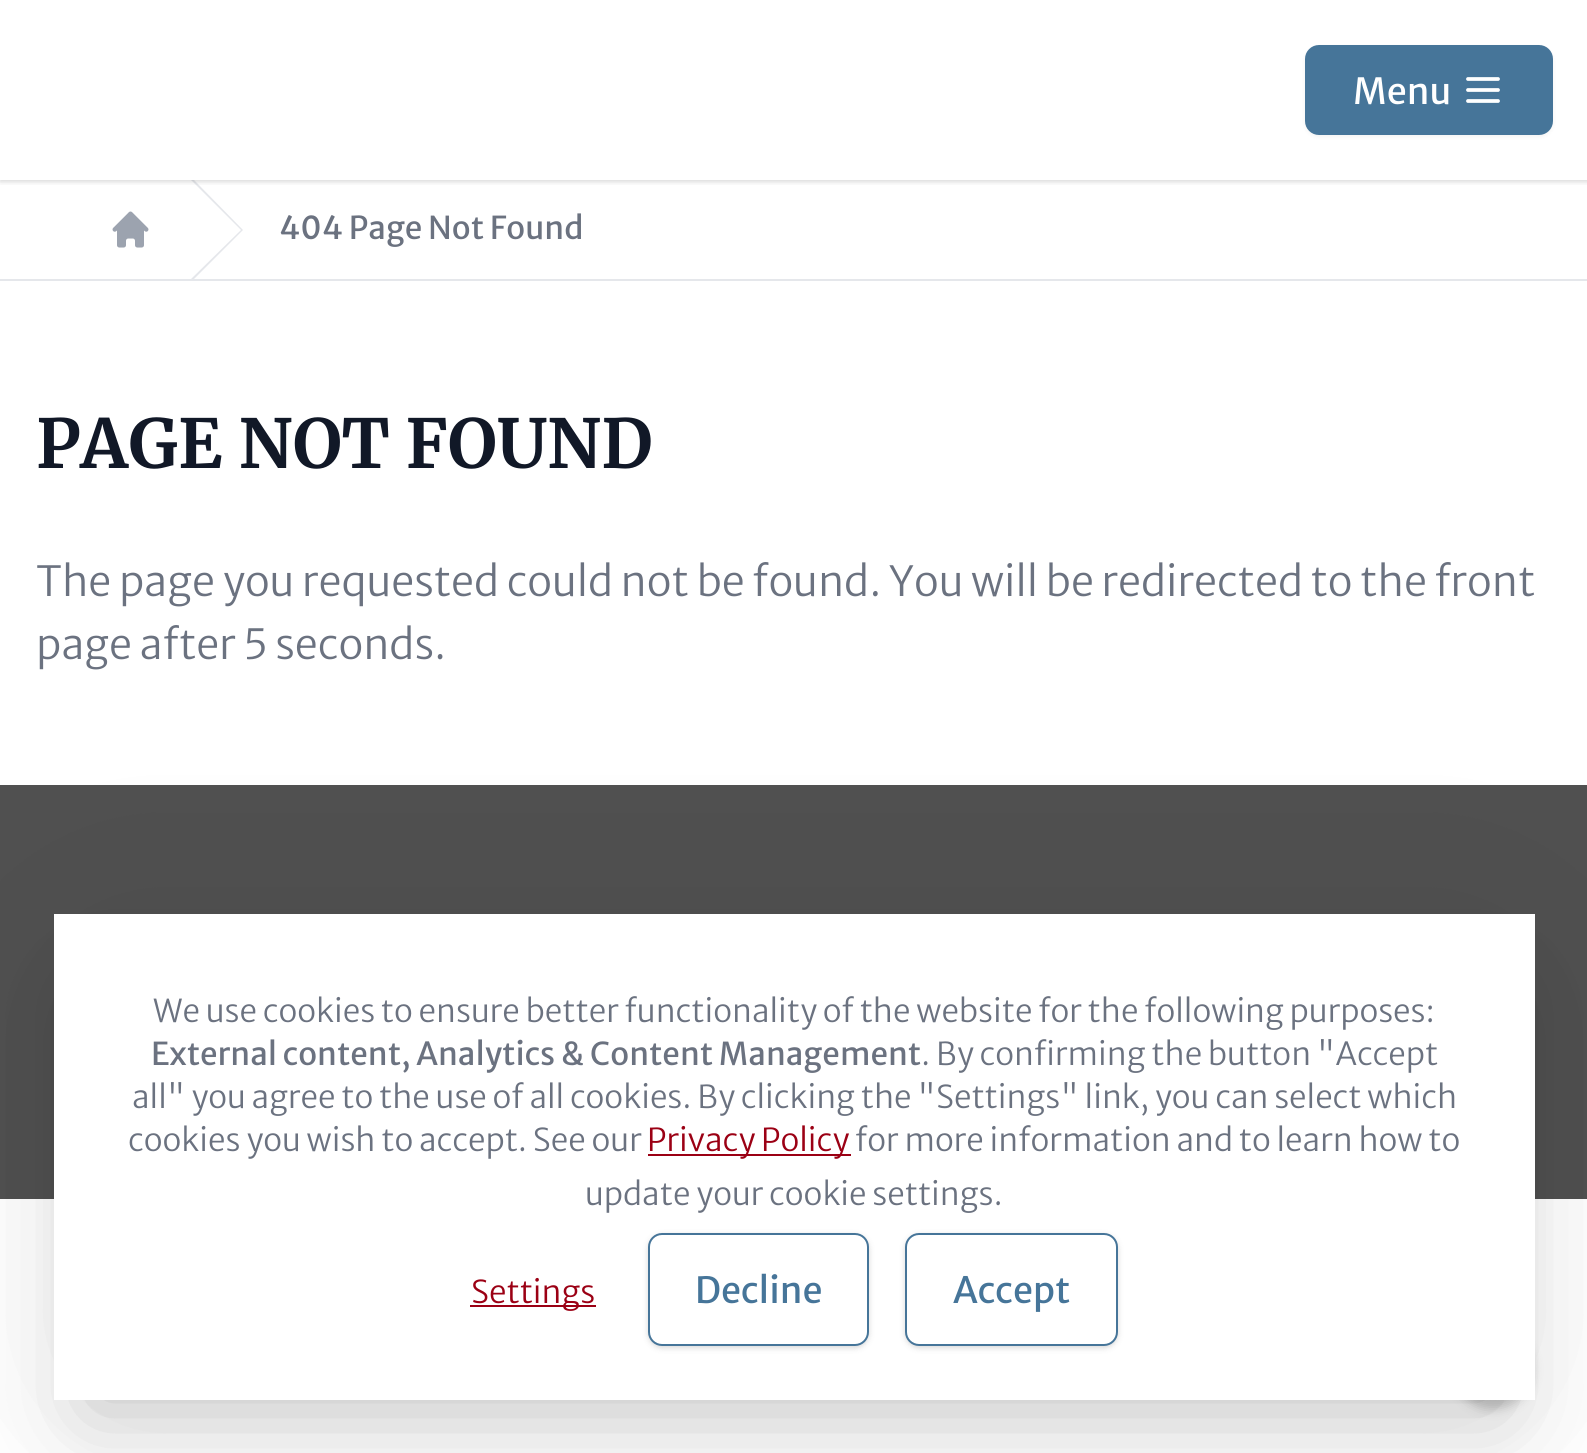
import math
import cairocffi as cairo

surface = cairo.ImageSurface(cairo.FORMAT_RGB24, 1587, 1453)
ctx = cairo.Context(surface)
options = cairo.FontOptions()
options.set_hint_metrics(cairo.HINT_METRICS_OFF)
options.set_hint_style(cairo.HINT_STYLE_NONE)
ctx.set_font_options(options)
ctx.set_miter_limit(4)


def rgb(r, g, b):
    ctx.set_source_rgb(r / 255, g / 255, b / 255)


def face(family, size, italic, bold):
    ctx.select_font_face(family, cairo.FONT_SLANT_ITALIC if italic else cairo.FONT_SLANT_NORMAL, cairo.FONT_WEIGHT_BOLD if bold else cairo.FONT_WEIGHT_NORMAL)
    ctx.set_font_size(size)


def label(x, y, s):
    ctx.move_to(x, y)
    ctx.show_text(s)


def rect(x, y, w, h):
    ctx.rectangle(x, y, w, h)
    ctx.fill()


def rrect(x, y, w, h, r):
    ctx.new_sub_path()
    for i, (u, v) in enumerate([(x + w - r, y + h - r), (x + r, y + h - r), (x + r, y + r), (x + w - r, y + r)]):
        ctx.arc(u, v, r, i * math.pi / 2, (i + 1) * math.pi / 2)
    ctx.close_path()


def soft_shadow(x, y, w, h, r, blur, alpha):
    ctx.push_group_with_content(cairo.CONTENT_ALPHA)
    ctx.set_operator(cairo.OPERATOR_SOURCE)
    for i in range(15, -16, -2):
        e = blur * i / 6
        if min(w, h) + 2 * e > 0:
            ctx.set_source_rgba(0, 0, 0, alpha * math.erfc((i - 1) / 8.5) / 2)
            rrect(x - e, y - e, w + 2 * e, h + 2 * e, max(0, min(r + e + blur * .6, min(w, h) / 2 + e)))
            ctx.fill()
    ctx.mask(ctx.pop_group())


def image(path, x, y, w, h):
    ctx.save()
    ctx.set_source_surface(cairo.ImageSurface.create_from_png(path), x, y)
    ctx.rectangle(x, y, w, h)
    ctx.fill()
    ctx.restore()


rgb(255, 255, 255)
ctx.paint()
rgb(229, 231, 235)
ctx.new_path()
ctx.move_to(191, 180)
ctx.line_to(194, 180)
ctx.line_to(243, 230)
ctx.line_to(241, 230)
ctx.close_path()
ctx.fill()
ctx.save()
ctx.rectangle(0, 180, 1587, 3)
ctx.clip()
rgb(0, 0, 0)
soft_shadow(0, 2, 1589, 180, 0, 2, 0.06)
ctx.restore()
ctx.save()
ctx.rectangle(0, 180, 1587, 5)
ctx.clip()
rgb(0, 0, 0)
soft_shadow(0, 2, 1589, 180, 0, 3.5, 0.1)
ctx.restore()
rgb(0, 0, 0)
soft_shadow(1305, 47, 248, 90, 14, 2, 0.05)
rgb(70, 117, 153)
rrect(1305, 45, 248, 90, 14)
ctx.fill()
face('Merriweather Sans', 36, 0, 0)
rgb(255, 255, 255)
label(1353, 104, 'Menu')
ctx.new_path()
ctx.move_to(1468, 79)
ctx.line_to(1498, 79)
ctx.move_to(1468, 90)
ctx.line_to(1498, 90)
ctx.move_to(1468, 101)
ctx.line_to(1498, 101)
ctx.set_line_width(3.8)
ctx.set_line_cap(cairo.LINE_CAP_ROUND)
ctx.set_line_join(cairo.LINE_JOIN_ROUND)
ctx.stroke()
rgb(229, 231, 235)
rect(0, 279, 1587, 2)
image('image0.png', 112, 211, 37, 37)
ctx.new_path()
ctx.move_to(241, 230)
ctx.line_to(243, 230)
ctx.line_to(194, 279)
ctx.line_to(191, 279)
ctx.close_path()
ctx.fill()
face('Merriweather Sans', 31.5, 0, 0)
rgb(107, 114, 128)
label(279, 239, '404 Page Not Found')
face('Merriweather', 67.5, 0, 1)
rgb(17, 24, 39)
label(36, 468, 'PAGE NOT FOUND')
face('Merriweather Sans Light', 41.4, 0, 0)
rgb(107, 114, 128)
label(36, 596, 'The page you requested could not be found. You will be redirected to the front')
label(36, 659, 'page after 5 seconds.')
rgb(80, 80, 80)
rect(0, 785, 1587, 414)
rgb(0, 0, 0)
soft_shadow(99, 981, 1391, 396, 0, 112.5, 0.1)
soft_shadow(88, 992, 1413, 419, 0, 45, 0.2)
soft_shadow(1454, 1330, 78, 79, 39, 5.5, 0.2)
rgb(255, 255, 255)
rect(54, 914, 1481, 486)
face('Merriweather Sans Light', 31.5, 0, 0)
rgb(107, 114, 128)
label(153, 1022, 'We use cookies to ensure better functionality of the website for the following purposes:')
face('Merriweather Sans', 31.5, 0, 0)
label(151, 1065, 'External content, Analytics & Content Management')
face('Merriweather Sans Light', 31.5, 0, 0)
label(921, 1065, '. By confirming the button "Accept')
label(132, 1108, 'all" you agree to the use of all cookies. By clicking the "Settings" link, you can select which')
label(128, 1151, 'cookies you wish to accept. See our')
rgb(155, 0, 20)
rect(648, 1154, 203, 2)
label(647, 1151, 'Privacy Policy')
rgb(107, 114, 128)
label(855, 1151, 'for more information and to learn how to')
label(585, 1205, 'update your cookie settings.')
rgb(155, 0, 20)
rect(470, 1305, 126, 2)
label(471, 1303, 'Settings')
rgb(0, 0, 0)
soft_shadow(648, 1235, 221, 113, 14, 2, 0.06)
soft_shadow(648, 1235, 221, 113, 14, 3.5, 0.1)
rgb(255, 255, 255)
rrect(649, 1234, 219, 111, 13)
ctx.fill_preserve()
rgb(70, 117, 153)
ctx.set_line_width(2)
ctx.set_line_cap(cairo.LINE_CAP_BUTT)
ctx.set_line_join(cairo.LINE_JOIN_MITER)
ctx.stroke()
face('Merriweather Sans', 36, 0, 0)
label(695, 1303, 'Decline')
rgb(0, 0, 0)
soft_shadow(905, 1235, 213, 113, 14, 2, 0.06)
soft_shadow(905, 1235, 213, 113, 14, 3.5, 0.1)
rgb(255, 255, 255)
rrect(906, 1234, 211, 111, 13)
ctx.fill_preserve()
rgb(70, 117, 153)
ctx.stroke()
label(953, 1303, 'Accept')
surface.write_to_png('render.png')
